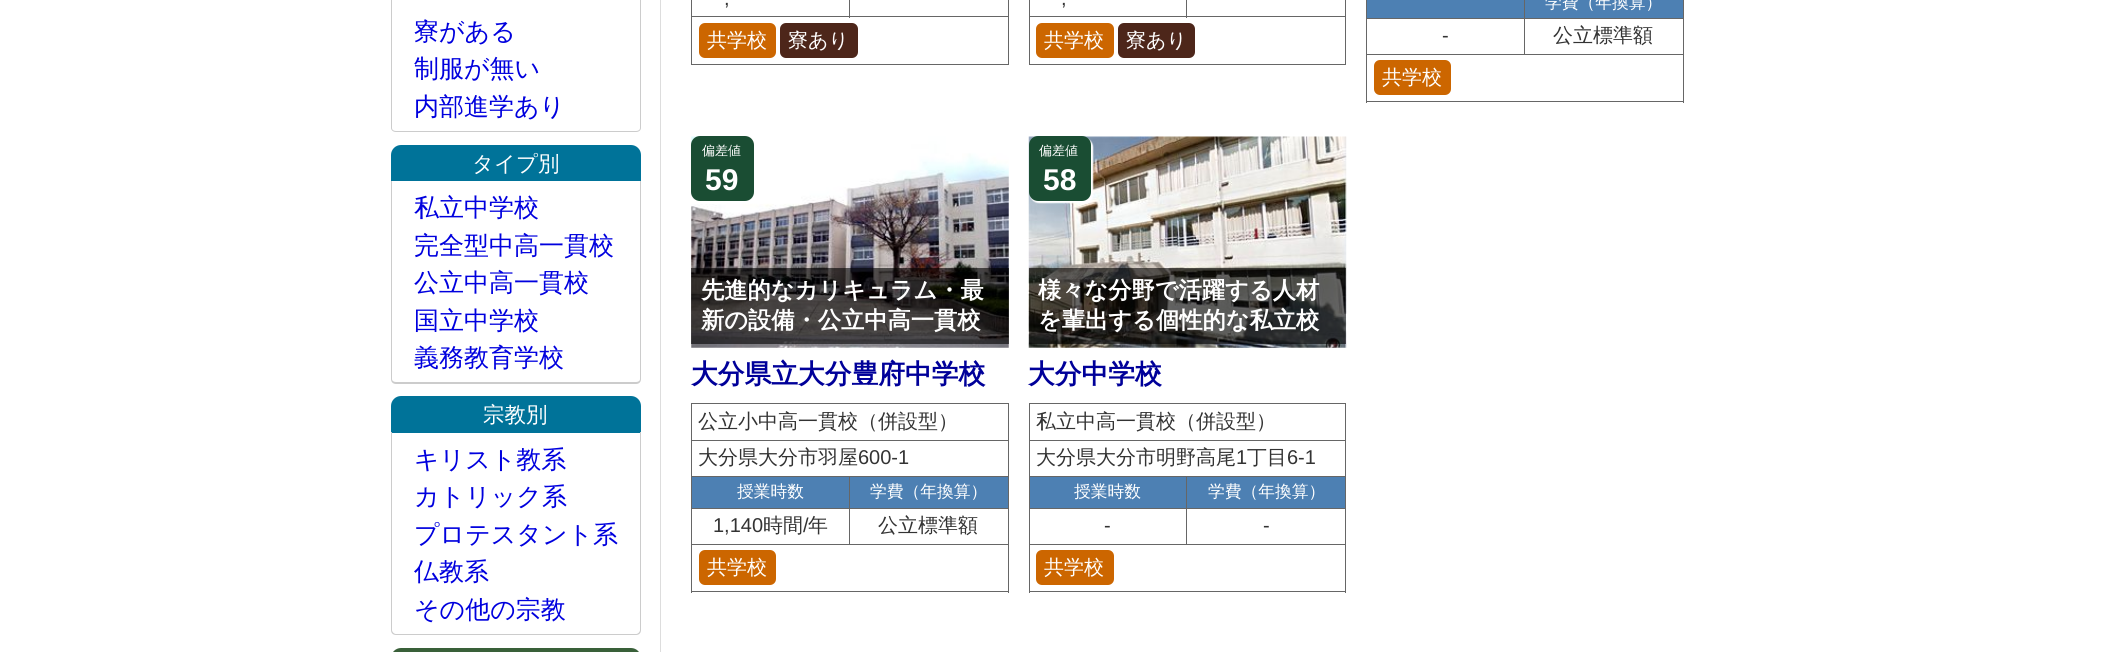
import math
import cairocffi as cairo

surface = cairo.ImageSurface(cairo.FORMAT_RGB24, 2106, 652)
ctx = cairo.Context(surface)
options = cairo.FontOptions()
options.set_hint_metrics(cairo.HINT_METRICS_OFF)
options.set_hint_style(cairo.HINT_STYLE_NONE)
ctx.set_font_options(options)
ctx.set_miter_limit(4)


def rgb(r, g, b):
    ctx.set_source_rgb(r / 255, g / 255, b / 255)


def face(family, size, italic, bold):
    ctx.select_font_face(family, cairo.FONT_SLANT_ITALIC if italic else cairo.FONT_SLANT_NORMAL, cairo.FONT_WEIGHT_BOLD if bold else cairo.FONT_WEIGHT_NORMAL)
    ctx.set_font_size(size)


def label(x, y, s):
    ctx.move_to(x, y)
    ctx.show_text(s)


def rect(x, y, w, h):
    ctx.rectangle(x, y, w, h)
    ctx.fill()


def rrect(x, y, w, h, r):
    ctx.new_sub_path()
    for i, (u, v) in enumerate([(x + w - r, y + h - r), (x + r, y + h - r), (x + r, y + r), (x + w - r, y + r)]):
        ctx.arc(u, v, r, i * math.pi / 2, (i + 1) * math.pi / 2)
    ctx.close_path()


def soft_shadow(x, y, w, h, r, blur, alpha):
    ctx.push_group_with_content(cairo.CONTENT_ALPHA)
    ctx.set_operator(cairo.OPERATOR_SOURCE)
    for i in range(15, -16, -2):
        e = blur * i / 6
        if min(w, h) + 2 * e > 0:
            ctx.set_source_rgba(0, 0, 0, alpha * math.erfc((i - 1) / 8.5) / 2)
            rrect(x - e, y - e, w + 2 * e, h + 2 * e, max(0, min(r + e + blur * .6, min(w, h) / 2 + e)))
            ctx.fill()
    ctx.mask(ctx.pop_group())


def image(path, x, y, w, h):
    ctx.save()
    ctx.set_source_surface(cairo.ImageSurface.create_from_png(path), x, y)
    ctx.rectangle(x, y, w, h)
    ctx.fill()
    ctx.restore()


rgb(255, 255, 255)
ctx.paint()
rgb(221, 221, 221)
rect(660, 0, 1, 652)
rgb(204, 204, 204)
ctx.set_fill_rule(cairo.FILL_RULE_EVEN_ODD)
ctx.new_path()
ctx.move_to(391, -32)
ctx.line_to(641, -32)
ctx.line_to(641, 128)
ctx.curve_to(641, 130, 639, 132, 636, 132)
ctx.line_to(396, 132)
ctx.curve_to(393, 132, 391, 130, 391, 128)
ctx.close_path()
ctx.move_to(392, -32)
ctx.line_to(640, -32)
ctx.line_to(640, 128)
ctx.curve_to(640, 130, 638, 131, 636, 131)
ctx.line_to(396, 131)
ctx.curve_to(394, 131, 392, 130, 392, 128)
ctx.close_path()
ctx.fill()
face('WenQuanYi Zen Hei Medium', 25, 0, 0)
rgb(0, 0, 222)
label(414, 40, '寮がある')
label(414, 77, '制服が無い')
label(414, 115, '内部進学あり')
rgb(0, 115, 153)
ctx.new_path()
ctx.move_to(401, 145)
ctx.line_to(631, 145)
ctx.curve_to(636.5, 145, 641, 149.5, 641, 155)
ctx.line_to(641, 181)
ctx.line_to(391, 181)
ctx.line_to(391, 155)
ctx.curve_to(391, 149.5, 395.5, 145, 401, 145)
ctx.close_path()
ctx.fill()
face('WenQuanYi Zen Hei Medium', 21.5, 0, 0)
rgb(255, 255, 255)
label(472, 171, 'タイプ別')
rgb(204, 204, 204)
ctx.new_path()
ctx.move_to(391, 181)
ctx.line_to(641, 181)
ctx.line_to(641, 379)
ctx.curve_to(641, 382, 639, 384, 636, 384)
ctx.line_to(396, 384)
ctx.curve_to(393, 384, 391, 382, 391, 379)
ctx.close_path()
ctx.move_to(392, 181)
ctx.line_to(640, 181)
ctx.line_to(640, 379)
ctx.curve_to(640, 381, 638, 382, 636, 382)
ctx.line_to(396, 382)
ctx.curve_to(394, 382, 392, 381, 392, 379)
ctx.close_path()
ctx.fill()
face('WenQuanYi Zen Hei Medium', 25, 0, 0)
rgb(0, 0, 222)
label(414, 216, '私立中学校')
label(414, 254, '完全型中高一貫校')
label(414, 291, '公立中高一貫校')
label(414, 329, '国立中学校')
label(414, 366, '義務教育学校')
rgb(0, 115, 153)
ctx.new_path()
ctx.move_to(401, 396)
ctx.line_to(631, 396)
ctx.curve_to(636.5, 396, 641, 400.5, 641, 406)
ctx.line_to(641, 433)
ctx.line_to(391, 433)
ctx.line_to(391, 406)
ctx.curve_to(391, 400.5, 395.5, 396, 401, 396)
ctx.close_path()
ctx.fill()
face('WenQuanYi Zen Hei Medium', 21.5, 0, 0)
rgb(255, 255, 255)
label(483, 422, '宗教別')
rgb(204, 204, 204)
ctx.new_path()
ctx.move_to(391, 432)
ctx.line_to(641, 432)
ctx.line_to(641, 630)
ctx.curve_to(641, 633, 639, 635, 636, 635)
ctx.line_to(396, 635)
ctx.curve_to(393, 635, 391, 633, 391, 630)
ctx.close_path()
ctx.move_to(392, 432)
ctx.line_to(640, 432)
ctx.line_to(640, 630)
ctx.curve_to(640, 632, 638, 634, 636, 634)
ctx.line_to(396, 634)
ctx.curve_to(394, 634, 392, 632, 392, 630)
ctx.close_path()
ctx.fill()
face('WenQuanYi Zen Hei Medium', 25, 0, 0)
rgb(0, 0, 222)
label(414, 468, 'キリスト教系')
label(414, 505, 'カトリック系')
label(414, 543, 'プロテスタント系')
label(414, 580, '仏教系')
label(414, 618, 'その他の宗教')
rgb(57, 96, 57)
ctx.new_path()
ctx.move_to(401, 648)
ctx.line_to(631, 648)
ctx.curve_to(636.5, 648, 641, 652.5, 641, 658)
ctx.line_to(641, 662)
ctx.line_to(391, 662)
ctx.line_to(391, 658)
ctx.curve_to(391, 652.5, 395.5, 648, 401, 648)
ctx.close_path()
ctx.fill()
rgb(102, 102, 102)
rect(691, 0, 1, 65)
rect(1008, 0, 1, 65)
rect(849, 16, 160, 1)
rect(849, 0, 1, 18)
rect(691, 16, 159, 1)
face('Liberation Sans', 20, 0, 0)
rgb(51, 51, 51)
label(724, 5, ',')
rgb(102, 102, 102)
rect(691, 64, 318, 1)
rgb(204, 102, 0)
rrect(699, 23, 77, 35, 6)
ctx.fill()
face('WenQuanYi Zen Hei Medium', 20, 0, 0)
rgb(255, 255, 255)
label(707, 47, '共学校')
rgb(77, 38, 26)
rrect(780, 23, 78, 35, 6)
ctx.fill()
rgb(255, 255, 255)
label(788, 47, '寮あり')
rgb(102, 102, 102)
rect(1029, 0, 1, 65)
rect(1345, 0, 1, 65)
rect(1186, 16, 160, 1)
rect(1186, 0, 1, 18)
rect(1029, 16, 159, 1)
face('Liberation Sans', 20, 0, 0)
rgb(51, 51, 51)
label(1061, 5, ',')
rgb(102, 102, 102)
rect(1029, 64, 317, 1)
rgb(204, 102, 0)
rrect(1036, 23, 78, 35, 6)
ctx.fill()
face('WenQuanYi Zen Hei Medium', 20, 0, 0)
rgb(255, 255, 255)
label(1044, 47, '共学校')
rgb(77, 38, 26)
rrect(1118, 23, 77, 35, 6)
ctx.fill()
rgb(255, 255, 255)
label(1126, 47, '寮あり')
rgb(102, 102, 102)
rect(1366, 0, 1, 103)
rgb(77, 128, 179)
rect(1367, 0, 157, 18)
rgb(102, 102, 102)
rect(1683, 0, 1, 103)
rect(1524, 54, 160, 1)
rect(1524, 18, 1, 37)
rect(1524, 18, 160, 1)
rect(1524, 0, 1, 19)
rect(1366, 18, 159, 1)
rgb(77, 128, 179)
rect(1525, 0, 158, 18)
face('WenQuanYi Zen Hei Medium', 16.75, 0, 0)
rgb(255, 255, 255)
label(1545, 8, '学費（年換算）')
rgb(102, 102, 102)
rect(1366, 54, 159, 1)
face('Liberation Sans', 20, 0, 0)
rgb(51, 51, 51)
label(1442, 42, '-')
face('WenQuanYi Zen Hei Medium', 20, 0, 0)
label(1553, 42, '公立標準額')
rgb(102, 102, 102)
rect(1366, 101, 318, 1)
rgb(204, 102, 0)
rrect(1374, 60, 77, 35, 6)
ctx.fill()
rgb(255, 255, 255)
label(1382, 84, '共学校')
image('image0.png', 691, 136, 318, 212)
rgb(26, 77, 51)
rrect(691, 136, 63, 65, 9)
ctx.fill()
face('WenQuanYi Zen Hei Medium', 13, 0, 0)
rgb(255, 255, 255)
label(702, 155, '偏差値')
face('Liberation Sans', 30, 0, 1)
label(705, 190, '59')
ctx.set_source_rgba(0, 0, 0, 0.6)
rect(691, 268, 318, 76)
face('WenQuanYi Zen Hei', 23.25, 0, 1)
rgb(255, 255, 255)
label(701, 298, '先進的なカリキュラム・最')
label(701, 328, '新の設備・公立中高一貫校')
face('WenQuanYi Zen Hei', 26.75, 0, 1)
rgb(0, 0, 153)
label(691, 383, '大分県立大分豊府中学校')
rgb(102, 102, 102)
rect(691, 403, 318, 1)
rect(691, 403, 1, 190)
rect(1008, 403, 1, 190)
rect(691, 440, 318, 1)
face('WenQuanYi Zen Hei Medium', 20, 0, 0)
rgb(51, 51, 51)
label(698, 428, '公立小中高一貫校（併設型）')
rgb(102, 102, 102)
rect(849, 544, 160, 1)
rect(849, 508, 1, 37)
rect(849, 508, 160, 1)
rect(849, 476, 1, 33)
rect(691, 476, 318, 1)
rgb(51, 51, 51)
label(698, 464, '大分県大分市羽屋')
face('Liberation Sans', 20, 0, 0)
label(858, 464, '600-1')
rgb(77, 128, 179)
rect(692, 477, 157, 31)
rgb(102, 102, 102)
rect(691, 508, 159, 1)
face('WenQuanYi Zen Hei Medium', 16.75, 0, 0)
rgb(255, 255, 255)
label(737, 497, '授業時数')
rgb(77, 128, 179)
rect(850, 477, 158, 31)
rgb(255, 255, 255)
label(870, 497, '学費（年換算）')
rgb(102, 102, 102)
rect(691, 544, 159, 1)
face('Liberation Sans', 20, 0, 0)
rgb(51, 51, 51)
label(713, 532, '1,140')
face('WenQuanYi Zen Hei Medium', 20, 0, 0)
label(763, 532, '時間')
face('Liberation Sans', 20, 0, 0)
label(803, 532, '/')
face('WenQuanYi Zen Hei Medium', 20, 0, 0)
label(808, 532, '年')
label(878, 532, '公立標準額')
rgb(102, 102, 102)
rect(691, 591, 318, 1)
rgb(204, 102, 0)
rrect(699, 550, 77, 35, 6)
ctx.fill()
rgb(255, 255, 255)
label(707, 574, '共学校')
image('image1.png', 1028, 136, 319, 212)
rgb(255, 255, 255)
soft_shadow(1030, 138, 63, 65, 9, 0.5, 1)
rgb(26, 77, 51)
rrect(1029, 136, 62, 65, 9)
ctx.fill()
face('WenQuanYi Zen Hei Medium', 13, 0, 0)
rgb(255, 255, 255)
label(1039, 155, '偏差値')
face('Liberation Sans', 30, 0, 1)
label(1043, 190, '58')
ctx.set_source_rgba(0, 0, 0, 0.6)
rect(1029, 268, 317, 76)
face('WenQuanYi Zen Hei', 23.25, 0, 1)
rgb(255, 255, 255)
label(1038, 298, '様々な分野で活躍する人材')
label(1038, 328, 'を輩出する個性的な私立校')
face('WenQuanYi Zen Hei', 26.75, 0, 1)
rgb(0, 0, 153)
label(1028, 383, '大分中学校')
rgb(102, 102, 102)
rect(1029, 403, 317, 1)
rect(1029, 403, 1, 190)
rect(1345, 403, 1, 190)
rect(1029, 440, 317, 1)
face('WenQuanYi Zen Hei Medium', 20, 0, 0)
rgb(51, 51, 51)
label(1036, 428, '私立中高一貫校（併設型）')
rgb(77, 128, 179)
rect(1030, 477, 315, 31)
rgb(102, 102, 102)
rect(1186, 544, 160, 1)
rect(1186, 508, 1, 37)
rect(1186, 508, 160, 1)
rect(1186, 476, 1, 33)
rect(1029, 476, 317, 1)
rgb(51, 51, 51)
label(1036, 464, '大分県大分市明野高尾')
face('Liberation Sans', 20, 0, 0)
label(1236, 464, '1')
face('WenQuanYi Zen Hei Medium', 20, 0, 0)
label(1247, 464, '丁目')
face('Liberation Sans', 20, 0, 0)
label(1287, 464, '6-1')
rgb(102, 102, 102)
rect(1029, 508, 159, 1)
face('WenQuanYi Zen Hei Medium', 16.75, 0, 0)
rgb(255, 255, 255)
label(1074, 497, '授業時数')
label(1208, 497, '学費（年換算）')
rgb(102, 102, 102)
rect(1029, 544, 159, 1)
face('Liberation Sans', 20, 0, 0)
rgb(51, 51, 51)
label(1104, 532, '-')
label(1263, 532, '-')
rgb(102, 102, 102)
rect(1029, 591, 317, 1)
rgb(204, 102, 0)
rrect(1036, 550, 78, 35, 6)
ctx.fill()
face('WenQuanYi Zen Hei Medium', 20, 0, 0)
rgb(255, 255, 255)
label(1044, 574, '共学校')
surface.write_to_png('render.png')
